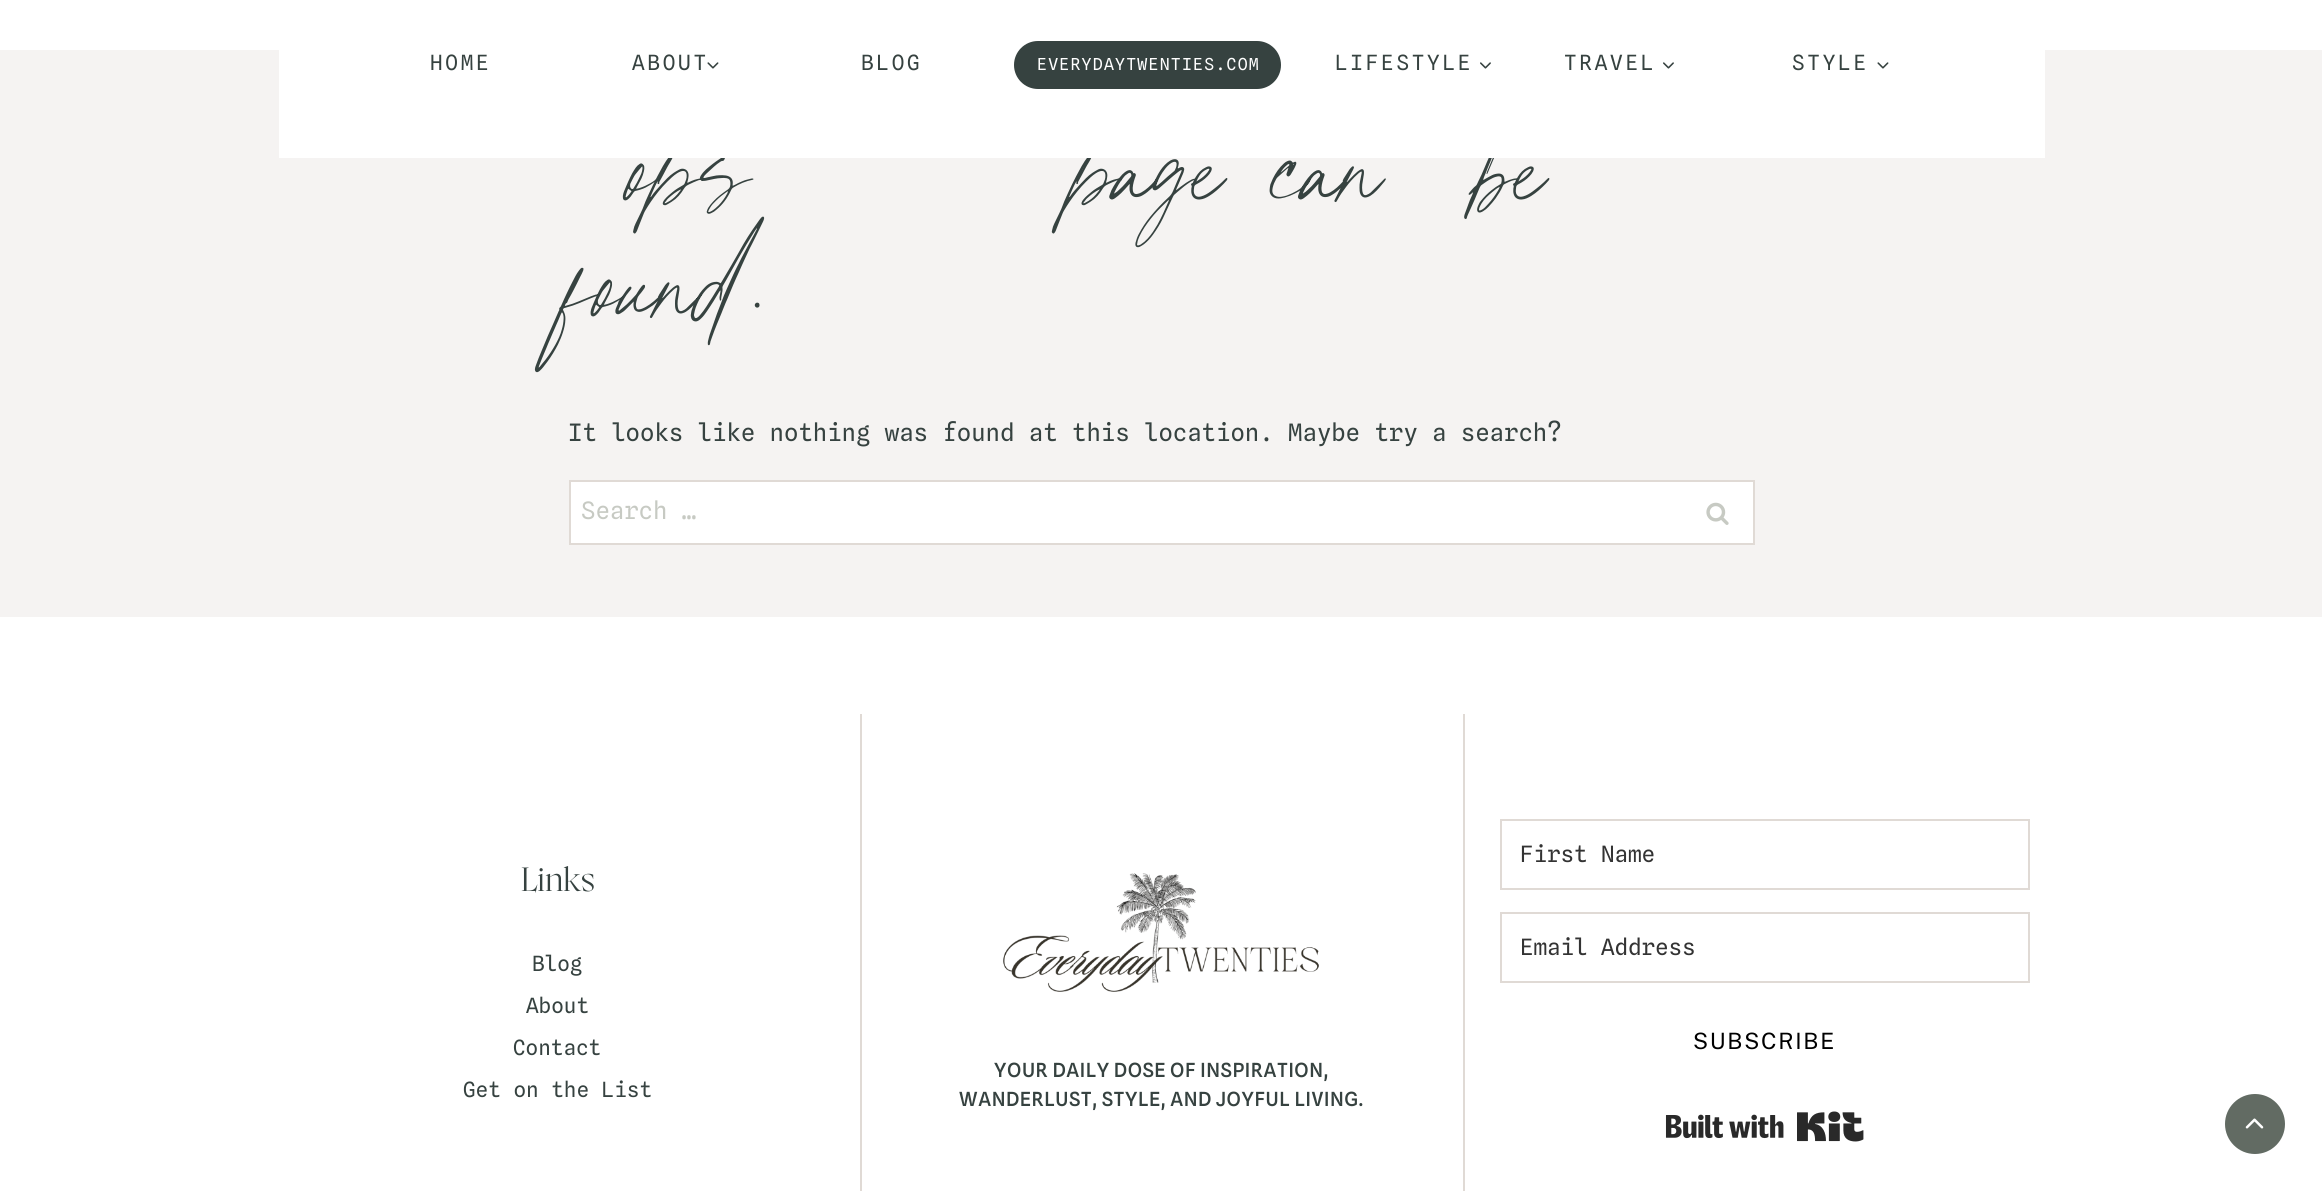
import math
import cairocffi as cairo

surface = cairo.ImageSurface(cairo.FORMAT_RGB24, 2322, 1191)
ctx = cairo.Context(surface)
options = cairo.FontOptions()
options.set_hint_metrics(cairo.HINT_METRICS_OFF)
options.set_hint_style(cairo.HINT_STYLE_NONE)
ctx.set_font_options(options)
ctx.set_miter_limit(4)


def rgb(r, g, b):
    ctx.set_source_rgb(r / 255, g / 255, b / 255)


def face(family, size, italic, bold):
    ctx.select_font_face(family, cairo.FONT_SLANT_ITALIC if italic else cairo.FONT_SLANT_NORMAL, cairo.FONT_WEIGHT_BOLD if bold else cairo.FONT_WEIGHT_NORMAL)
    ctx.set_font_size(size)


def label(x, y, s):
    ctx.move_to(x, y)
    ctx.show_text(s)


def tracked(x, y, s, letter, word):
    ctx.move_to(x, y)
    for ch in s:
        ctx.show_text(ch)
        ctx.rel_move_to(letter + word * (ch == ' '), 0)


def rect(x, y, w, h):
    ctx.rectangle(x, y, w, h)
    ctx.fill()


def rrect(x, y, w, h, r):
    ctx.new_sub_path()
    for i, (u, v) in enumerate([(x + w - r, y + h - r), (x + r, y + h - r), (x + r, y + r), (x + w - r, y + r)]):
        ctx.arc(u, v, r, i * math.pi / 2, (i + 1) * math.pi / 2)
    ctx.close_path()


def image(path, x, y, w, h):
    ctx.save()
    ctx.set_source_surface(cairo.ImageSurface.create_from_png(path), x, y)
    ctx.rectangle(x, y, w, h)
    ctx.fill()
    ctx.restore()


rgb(245, 243, 242)
ctx.paint()
rgb(255, 255, 255)
rect(0, 0, 2322, 50)
face('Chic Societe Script', 105, 0, 0)
rgb(54, 66, 64)
label(631, 210, 'ops')
label(1076, 210, 'page can')
label(1481, 210, 'be')
rgb(255, 255, 255)
rect(279, 50, 1766, 108)
face('Spline Sans Mono', 21, 0, 0)
rgb(54, 66, 64)
tracked(430, 70, 'HOME', 2.75, 0)
tracked(632, 70, 'ABOUT', 2.75, 0)
image('image0.png', 707, 62, 12, 7)
tracked(861, 70, 'BLOG', 2.75, 0)
rrect(1014, 41, 267, 48, 24)
ctx.fill()
face('Spline Sans Mono', 16.5, 0, 0)
rgb(255, 255, 255)
tracked(1037, 70, 'EVERYDAYTWENTIES.COM', 1.25, 0)
face('Spline Sans Mono', 21, 0, 0)
rgb(54, 66, 64)
tracked(1335, 70, 'LIFESTYLE', 2.75, 0)
image('image1.png', 1480, 62, 11, 7)
tracked(1564, 70, 'TRAVEL', 2.75, 0)
image('image1.png', 1663, 62, 11, 7)
tracked(1792, 70, 'STYLE', 2.75, 0)
image('image0.png', 1877, 62, 12, 7)
face('Chic Societe Script', 105, 0, 0)
label(568, 326, 'found.')
face('Spline Sans Mono', 24, 0, 0)
label(568, 441, 'It looks like nothing was found at this location. Maybe try a search?')
rgb(255, 255, 255)
ctx.rectangle(570, 481, 1184, 63)
ctx.fill_preserve()
rgb(224, 218, 213)
ctx.stroke()
rgb(199, 202, 195)
label(581, 519, 'Search …')
image('image2.png', 1706, 502, 23, 23)
rgb(255, 255, 255)
rect(0, 617, 2322, 574)
face('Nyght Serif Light', 33, 0, 0)
rgb(54, 66, 64)
label(521, 891, 'Links')
face('Spline Sans Mono', 21, 0, 0)
label(532, 971, 'Blog')
label(526, 1013, 'About')
label(513, 1055, 'Contact')
label(463, 1097, 'Get on the List')
rgb(224, 218, 213)
rect(860, 714, 2, 477)
image('image3.png', 1003, 873, 316, 119)
face('Spline Sans Medium', 19.5, 0, 0)
rgb(54, 66, 64)
tracked(994, 1077, 'YOUR DAILY DOSE OF INSPIRATION,', 0.6, 0)
tracked(959, 1106, 'WANDERLUST, STYLE, AND JOYFUL LIVING.', 0.6, 0)
rgb(224, 218, 213)
rect(1463, 714, 2, 477)
ctx.rectangle(1501, 820, 528, 69)
ctx.stroke()
face('Spline Sans Mono', 22.5, 0, 0)
rgb(51, 51, 51)
label(1520, 862, 'First Name')
ctx.rectangle(1501, 913, 528, 69)
rgb(224, 218, 213)
ctx.stroke()
rgb(51, 51, 51)
label(1520, 955, 'Email Address')
face('Public Sans', 22.5, 0, 0)
rgb(0, 0, 0)
tracked(1693, 1049, 'SUBSCRIBE', 1.75, 0)
image('image4.png', 1665, 1111, 199, 31)
rgb(98, 107, 99)
ctx.arc(2255, 1124, 30, 0, 2 * math.pi)
ctx.fill()
image('image5.png', 2245, 1118, 19, 11)
surface.write_to_png('render.png')
